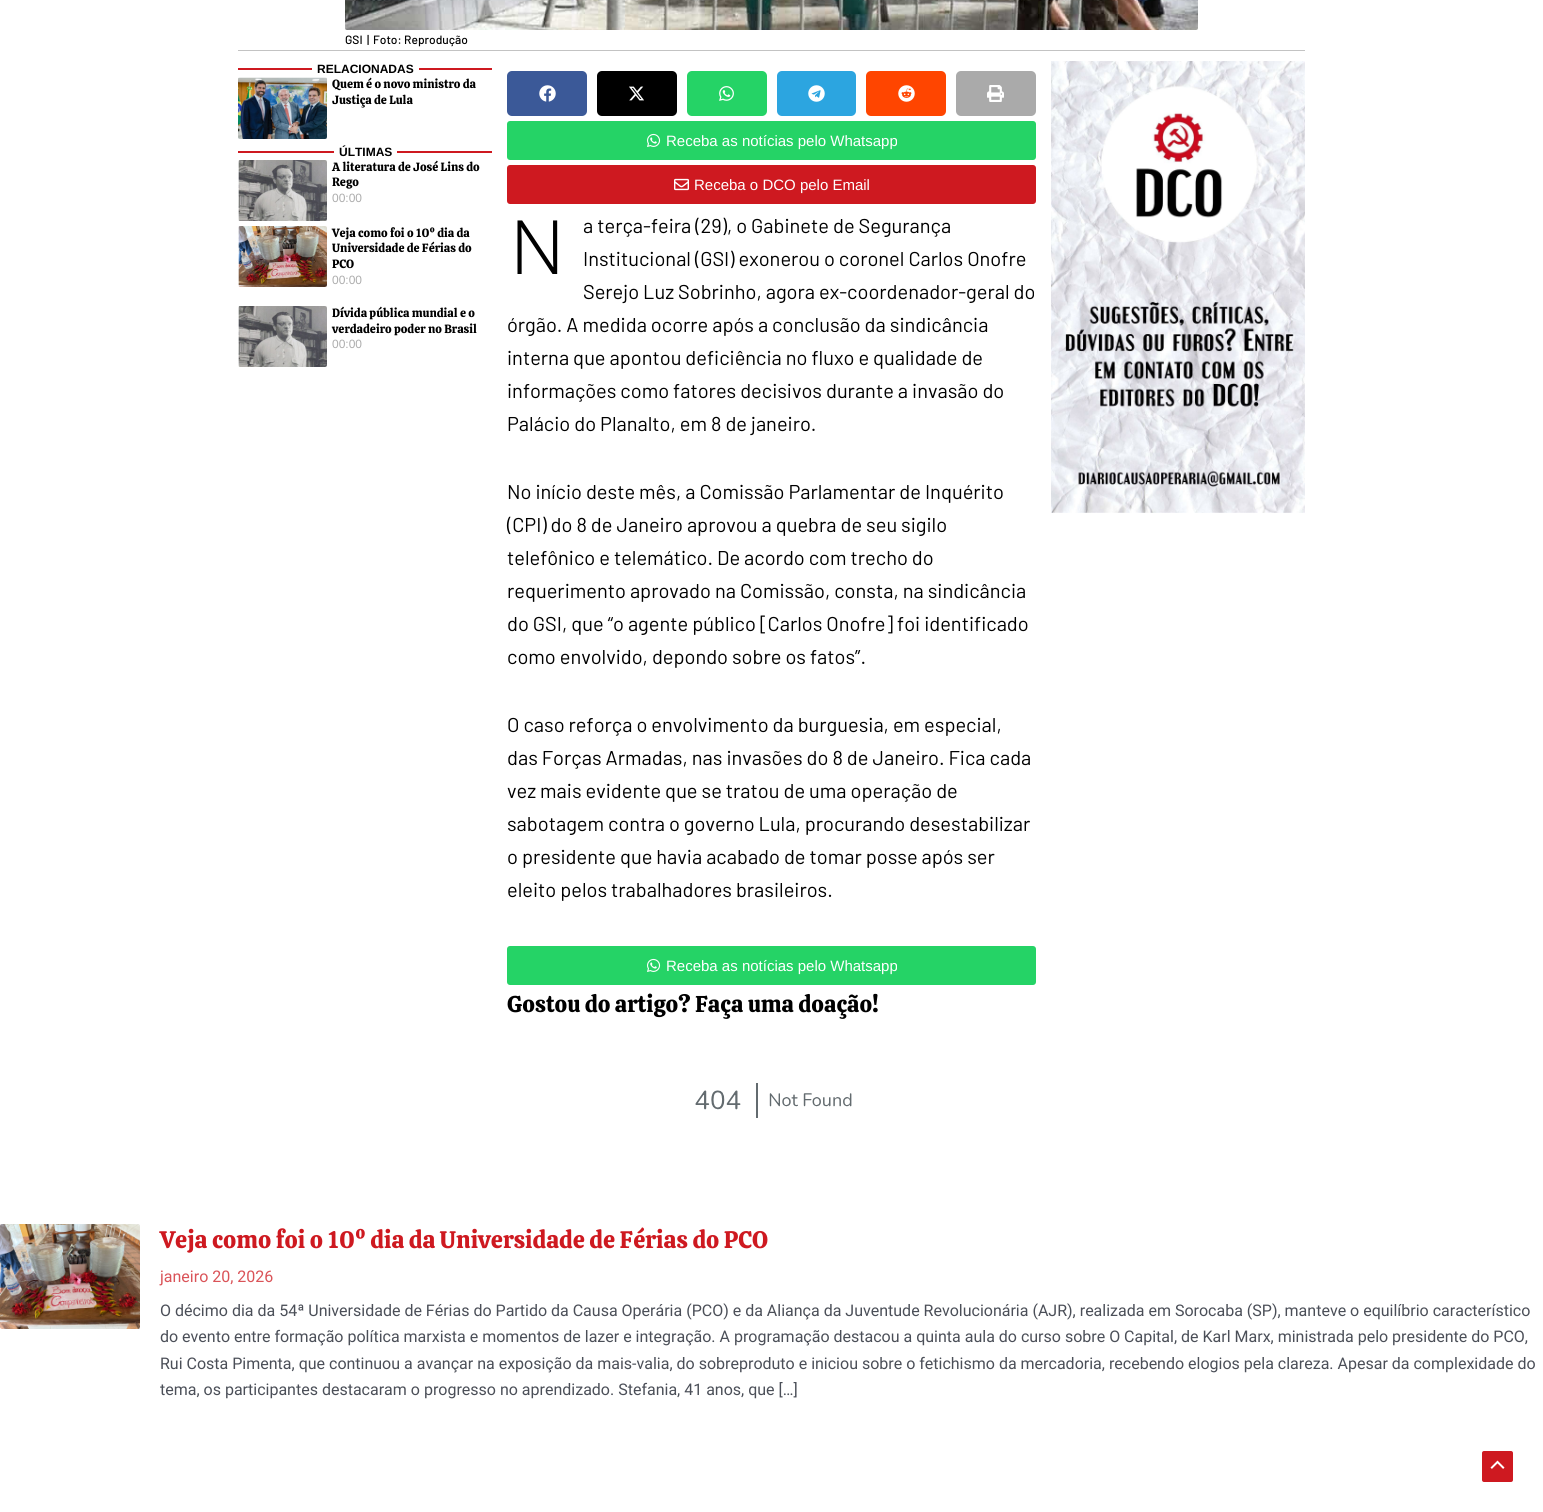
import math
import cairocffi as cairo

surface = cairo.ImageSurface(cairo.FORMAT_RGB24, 1543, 1512)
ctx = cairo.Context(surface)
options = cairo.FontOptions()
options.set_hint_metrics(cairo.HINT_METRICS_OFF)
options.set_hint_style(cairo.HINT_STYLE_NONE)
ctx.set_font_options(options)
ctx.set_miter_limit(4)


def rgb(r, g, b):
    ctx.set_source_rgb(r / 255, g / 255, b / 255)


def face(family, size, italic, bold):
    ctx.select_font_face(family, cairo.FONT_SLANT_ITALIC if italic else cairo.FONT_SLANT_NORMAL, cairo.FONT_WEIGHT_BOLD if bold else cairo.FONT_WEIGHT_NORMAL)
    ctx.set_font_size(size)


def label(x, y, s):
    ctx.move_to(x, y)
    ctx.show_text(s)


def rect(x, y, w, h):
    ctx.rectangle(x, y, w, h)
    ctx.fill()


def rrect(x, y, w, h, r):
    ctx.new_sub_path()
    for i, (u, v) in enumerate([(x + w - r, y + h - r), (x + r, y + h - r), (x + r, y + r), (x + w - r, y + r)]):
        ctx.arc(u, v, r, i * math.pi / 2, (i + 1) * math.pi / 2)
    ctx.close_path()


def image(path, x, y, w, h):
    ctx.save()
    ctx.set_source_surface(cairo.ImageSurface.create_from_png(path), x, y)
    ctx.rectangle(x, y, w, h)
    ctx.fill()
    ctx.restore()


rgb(255, 255, 255)
ctx.paint()
image('image0.png', 345, 0, 853, 30)
face('Barlow Medium', 12, 0, 0)
rgb(0, 0, 0)
label(345, 44, 'GSI')
label(367, 44, '|')
label(373, 44, 'Foto: Reprodução')
rgb(195, 195, 195)
rect(238, 50, 1067, 1)
rgb(206, 25, 32)
rect(238, 68, 74, 2)
face('Liberation Sans', 12, 0, 1)
rgb(0, 0, 0)
label(317, 73, 'RELACIONADAS')
rgb(206, 25, 32)
rect(419, 68, 73, 2)
image('image1.png', 238, 77, 89, 62)
face('Calistoga', 12, 0, 0)
rgb(0, 0, 0)
label(332, 88, 'Quem é o novo ministro da')
label(332, 104, 'Justiça de Lula')
rgb(206, 25, 32)
rect(238, 151, 96, 2)
face('Liberation Sans', 12, 0, 1)
rgb(0, 0, 0)
label(339, 156, 'ÚLTIMAS')
rgb(206, 25, 32)
rect(397, 151, 95, 2)
image('image2.png', 238, 160, 89, 61)
face('Calistoga', 12, 0, 0)
rgb(0, 0, 0)
label(332, 171, 'A literatura de José Lins do')
label(332, 186, 'Rego')
face('Liberation Sans', 12, 0, 0)
rgb(173, 173, 173)
label(332, 202, '00:00')
image('image3.png', 238, 226, 89, 61)
face('Calistoga', 12, 0, 0)
rgb(0, 0, 0)
label(332, 237, 'Veja como foi o 10º dia da')
label(332, 252, 'Universidade de Férias do')
label(332, 268, 'PCO')
face('Liberation Sans', 12, 0, 0)
rgb(173, 173, 173)
label(332, 284, '00:00')
image('image4.png', 238, 306, 89, 61)
face('Calistoga', 12, 0, 0)
rgb(0, 0, 0)
label(332, 317, 'Dívida pública mundial e o')
label(332, 333, 'verdadeiro poder no Brasil')
face('Liberation Sans', 12, 0, 0)
rgb(173, 173, 173)
label(332, 348, '00:00')
rgb(59, 89, 152)
rrect(507, 71, 80, 45, 5)
ctx.fill()
image('image5.png', 539, 85, 17, 17)
rgb(0, 0, 0)
rrect(597, 71, 80, 45, 5)
ctx.fill()
image('image6.png', 629, 86, 15, 15)
rgb(37, 211, 102)
rrect(687, 71, 80, 45, 5)
ctx.fill()
image('image7.png', 719, 86, 15, 15)
rgb(44, 165, 224)
rrect(777, 71, 79, 45, 5)
ctx.fill()
image('image8.png', 808, 85, 17, 17)
rgb(255, 69, 0)
rrect(866, 71, 80, 45, 5)
ctx.fill()
image('image9.png', 898, 85, 17, 17)
rgb(170, 170, 170)
rrect(956, 71, 80, 45, 5)
ctx.fill()
image('image10.png', 987, 85, 17, 17)
rgb(37, 211, 102)
rrect(507, 121, 529, 39, 3)
ctx.fill()
image('image11.png', 647, 133, 14, 14)
face('Liberation Sans', 15, 0, 0)
rgb(255, 255, 255)
label(666, 146, 'Receba as notícias pelo Whatsapp')
rgb(206, 25, 32)
rrect(507, 165, 529, 39, 3)
ctx.fill()
image('image12.png', 674, 178, 15, 13)
rgb(255, 255, 255)
label(694, 190, 'Receba o DCO pelo Email')
face('Noto Sans Light', 75, 0, 0)
rgb(0, 0, 0)
label(510, 274, 'N')
face('Barlow', 20, 0, 0)
label(583, 233, 'a terça-feira (29), o Gabinete de Segurança')
label(583, 266, 'Institucional (GSI) exonerou o coronel Carlos Onofre')
label(583, 299, 'Serejo Luz Sobrinho, agora ex-coordenador-geral do')
label(507, 332, 'órgão. A medida ocorre após a conclusão da sindicância')
label(507, 365, 'interna que apontou deficiência no fluxo e qualidade de')
label(507, 398, 'informações como fatores decisivos durante a invasão do')
label(507, 431, 'Palácio do Planalto, em 8 de janeiro.')
label(507, 499, 'No início deste mês, a Comissão Parlamentar de Inquérito')
label(507, 532, '(CPI) do 8 de Janeiro aprovou a quebra de seu sigilo')
label(507, 565, 'telefônico e telemático. De acordo com trecho do')
label(507, 598, 'requerimento aprovado na Comissão, consta, na sindicância')
label(507, 631, 'do GSI, que “o agente público [Carlos Onofre] foi identificado')
label(507, 664, 'como envolvido, depondo sobre os fatos”.')
label(507, 732, 'O caso reforça o envolvimento da burguesia, em especial,')
label(507, 765, 'das Forças Armadas, nas invasões do 8 de Janeiro. Fica cada')
label(507, 798, 'vez mais evidente que se tratou de uma operação de')
label(507, 831, 'sabotagem contra o governo Lula, procurando desestabilizar')
label(507, 864, 'o presidente que havia acabado de tomar posse após ser')
label(507, 897, 'eleito pelos trabalhadores brasileiros.')
rgb(37, 211, 102)
rrect(507, 946, 529, 39, 3)
ctx.fill()
image('image11.png', 647, 958, 14, 14)
face('Liberation Sans', 15, 0, 0)
rgb(255, 255, 255)
label(666, 971, 'Receba as notícias pelo Whatsapp')
face('Calistoga', 23, 0, 0)
rgb(0, 0, 0)
label(507, 1012, 'Gostou do artigo? Faça uma doação!')
image('image13.png', 695, 1083, 157, 35)
image('image14.png', 1051, 61, 254, 452)
image('image15.png', 0, 1224, 140, 105)
face('Calistoga', 24, 0, 0)
rgb(206, 25, 32)
label(160, 1248, 'Veja como foi o 10º dia da Universidade de Férias do PCO')
face('Roboto', 16, 0, 0)
rgb(218, 83, 88)
label(160, 1282, 'janeiro 20, 2026')
rgb(75, 79, 88)
label(160, 1316, 'O décimo dia da 54ª Universidade de Férias do Partido da Causa Operária (PCO) e da Aliança da Juventude Revolucionária (AJR), realizada em Sorocaba (SP), manteve o equilíbrio característico')
label(160, 1342, 'do evento entre formação política marxista e momentos de lazer e integração. A programação destacou a quinta aula do curso sobre O Capital, de Karl Marx, ministrada pelo presidente do PCO,')
label(160, 1369, 'Rui Costa Pimenta, que continuou a avançar na exposição da mais-valia, do sobreproduto e iniciou sobre o fetichismo da mercadoria, recebendo elogios pela clareza. Apesar da complexidade do')
label(160, 1395, 'tema, os participantes destacaram o progresso no aprendizado. Stefania, 41 anos, que […]')
rgb(206, 25, 32)
rrect(1482, 1451, 31, 31, 2)
ctx.fill()
image('image16.png', 1490, 1460, 15, 9)
surface.write_to_png('render.png')
